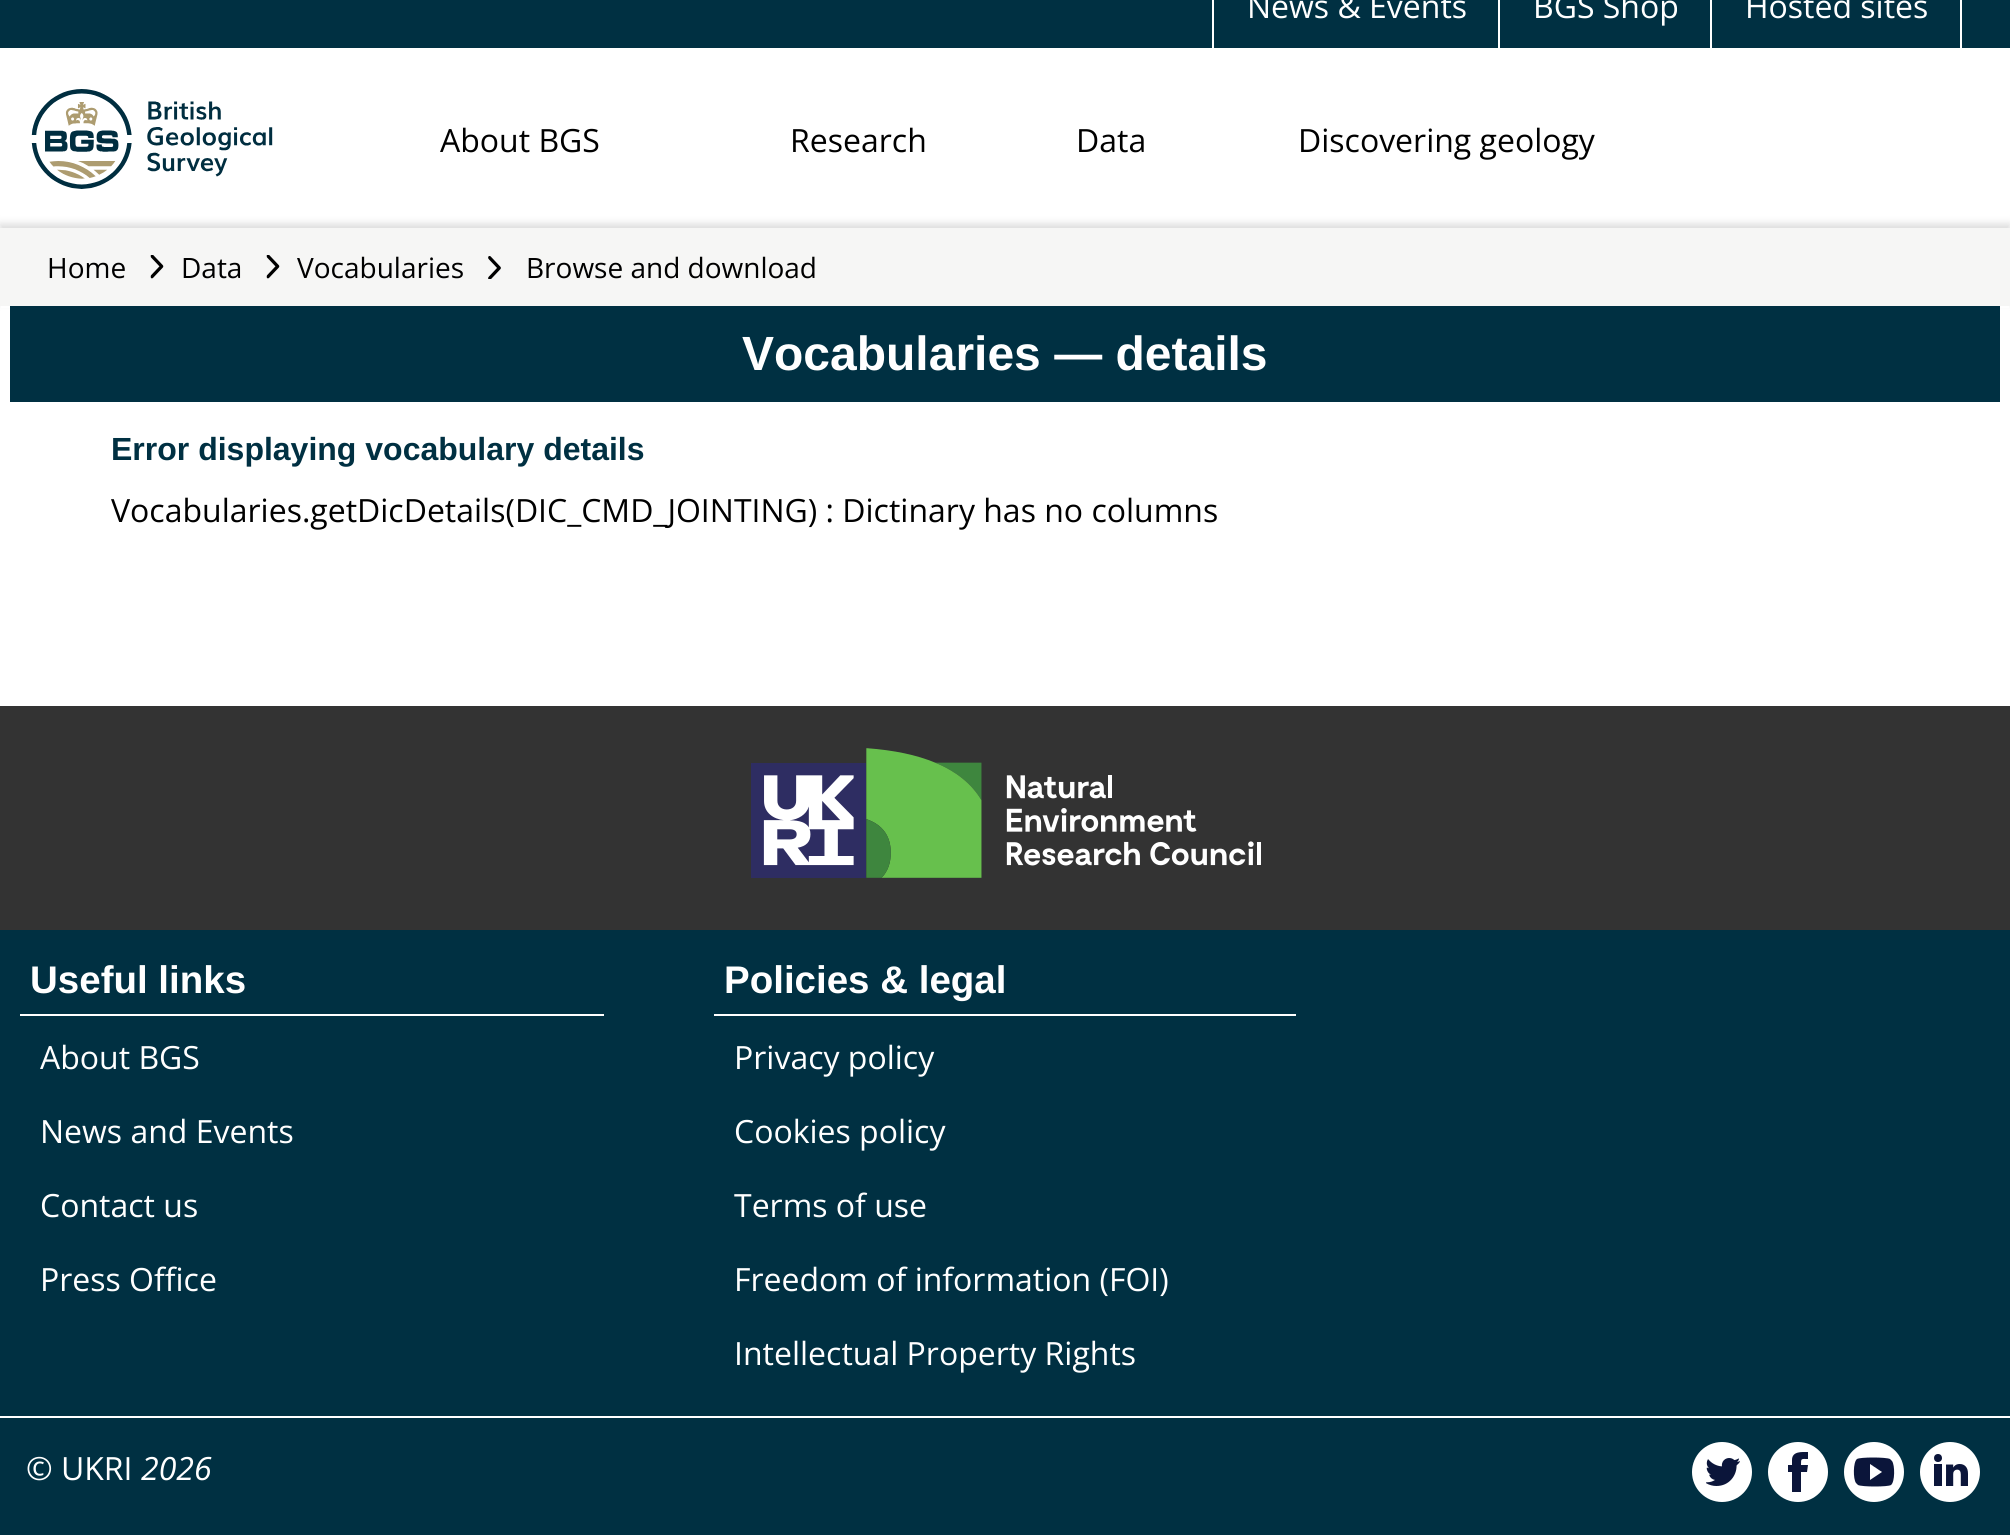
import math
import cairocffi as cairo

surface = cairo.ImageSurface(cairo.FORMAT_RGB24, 2010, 1535)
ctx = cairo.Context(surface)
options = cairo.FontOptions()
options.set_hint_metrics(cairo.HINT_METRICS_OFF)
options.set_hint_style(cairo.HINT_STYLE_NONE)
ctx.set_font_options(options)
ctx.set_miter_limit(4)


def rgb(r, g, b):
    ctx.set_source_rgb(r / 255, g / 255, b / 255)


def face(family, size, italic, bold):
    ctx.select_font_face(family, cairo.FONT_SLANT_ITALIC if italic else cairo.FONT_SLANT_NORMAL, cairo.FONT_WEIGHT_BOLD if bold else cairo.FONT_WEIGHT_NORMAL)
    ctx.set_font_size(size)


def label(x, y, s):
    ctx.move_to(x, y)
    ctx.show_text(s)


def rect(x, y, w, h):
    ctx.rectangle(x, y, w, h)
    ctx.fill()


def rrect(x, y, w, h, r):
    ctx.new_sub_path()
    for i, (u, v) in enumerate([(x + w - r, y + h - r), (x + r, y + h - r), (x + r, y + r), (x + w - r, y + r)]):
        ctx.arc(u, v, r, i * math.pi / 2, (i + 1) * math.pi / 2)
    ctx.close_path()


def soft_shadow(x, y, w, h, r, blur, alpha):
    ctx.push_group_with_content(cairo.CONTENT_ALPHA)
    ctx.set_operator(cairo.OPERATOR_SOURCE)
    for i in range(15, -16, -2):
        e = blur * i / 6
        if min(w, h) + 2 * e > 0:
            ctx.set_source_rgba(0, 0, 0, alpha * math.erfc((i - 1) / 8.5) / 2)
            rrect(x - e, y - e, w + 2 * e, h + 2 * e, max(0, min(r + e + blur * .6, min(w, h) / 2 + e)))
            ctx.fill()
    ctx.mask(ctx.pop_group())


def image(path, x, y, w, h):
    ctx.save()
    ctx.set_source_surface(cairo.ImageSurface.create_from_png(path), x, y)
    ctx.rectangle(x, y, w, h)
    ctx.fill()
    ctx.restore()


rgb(255, 255, 255)
ctx.paint()
rgb(0, 48, 66)
rect(0, 0, 2010, 48)
rgb(255, 255, 255)
rect(1498, 0, 2, 48)
rect(1212, 0, 2, 48)
face('Open Sans', 32, 0, 0)
label(1247, 18, 'News & Events')
rect(1710, 0, 2, 48)
label(1533, 18, 'BGS Shop')
rect(1960, 0, 2, 48)
label(1745, 18, 'Hosted sites')
image('image0.png', 31, 89, 242, 100)
rgb(0, 0, 0)
label(440, 152, 'About BGS')
label(790, 152, 'Research')
label(1076, 152, 'Data')
label(1298, 152, 'Discovering geology')
rgb(183, 183, 183)
soft_shadow(0, 224, 2010, 78, 0, 4, 0.5)
rgb(246, 246, 245)
rect(0, 228, 2010, 78)
face('Open Sans', 28, 0, 0)
rgb(0, 0, 0)
label(47, 278, 'Home')
image('image1.png', 150, 255, 14, 24)
label(181, 278, 'Data')
image('image1.png', 266, 255, 14, 24)
label(297, 278, 'Vocabularies')
image('image2.png', 488, 256, 13, 23)
label(526, 278, 'Browse and download')
rgb(255, 255, 255)
rect(1, 306, 2008, 2)
rgb(0, 48, 66)
rect(10, 306, 1990, 96)
face('Liberation Sans', 48, 0, 1)
rgb(255, 255, 255)
label(742, 370, 'Vocabularies — details')
face('Liberation Sans', 32, 0, 1)
rgb(0, 48, 66)
label(111, 460, 'Error displaying vocabulary details')
face('Open Sans', 32, 0, 0)
rgb(0, 0, 0)
label(111, 522, 'Vocabularies.getDicDetails(DIC_CMD_JOINTING) : Dictinary has no columns')
rgb(0, 48, 66)
rect(0, 930, 2010, 605)
rgb(51, 51, 51)
rect(0, 706, 2010, 224)
image('image3.png', 751, 748, 510, 130)
rgb(255, 255, 255)
rect(20, 1014, 584, 2)
face('Liberation Sans', 38.5, 0, 1)
label(30, 993, 'Useful links')
face('Open Sans', 32, 0, 0)
label(40, 1069, 'About BGS')
label(40, 1143, 'News and Events')
label(40, 1217, 'Contact us')
label(40, 1291, 'Press Office')
rect(714, 1014, 582, 2)
face('Liberation Sans', 38.5, 0, 1)
label(724, 993, 'Policies & legal')
face('Open Sans', 32, 0, 0)
label(734, 1069, 'Privacy policy')
label(734, 1143, 'Cookies policy')
label(734, 1217, 'Terms of use')
label(734, 1291, 'Freedom of information (FOI)')
label(734, 1365, 'Intellectual Property Rights')
rect(0, 1416, 2010, 2)
label(26, 1480, '© UKRI')
face('Open Sans', 32, 1, 0)
label(141, 1480, '2026')
image('image4.png', 1692, 1442, 60, 60)
ctx.arc(1798, 1472, 30, 0, 2 * math.pi)
ctx.fill()
rgb(11, 21, 58)
ctx.set_fill_rule(cairo.FILL_RULE_EVEN_ODD)
ctx.new_path()
ctx.move_to(1792, 1460)
ctx.line_to(1792, 1465)
ctx.line_to(1788, 1465)
ctx.line_to(1788, 1472)
ctx.line_to(1792, 1472)
ctx.line_to(1792, 1492)
ctx.line_to(1801, 1492)
ctx.line_to(1801, 1472)
ctx.line_to(1807, 1472)
ctx.line_to(1808, 1465)
ctx.line_to(1801, 1465)
ctx.curve_to(1801, 1458, 1801, 1459, 1808, 1459)
ctx.line_to(1808, 1452)
ctx.curve_to(1802, 1452, 1792, 1451, 1792, 1460)
ctx.close_path()
ctx.fill()
rgb(255, 255, 255)
ctx.arc(1874, 1472, 30, 0, 2 * math.pi)
ctx.fill()
rgb(11, 21, 58)
ctx.new_path()
ctx.move_to(1892, 1461)
ctx.line_to(1890, 1459)
ctx.curve_to(1886, 1457, 1860, 1457, 1857, 1459)
ctx.curve_to(1853, 1462, 1853, 1479, 1856, 1483)
ctx.line_to(1858, 1485)
ctx.curve_to(1862, 1487, 1888, 1487, 1891, 1485)
ctx.curve_to(1895, 1482, 1895, 1465, 1892, 1461)
ctx.close_path()
ctx.move_to(1870, 1480)
ctx.line_to(1870, 1464)
ctx.line_to(1882, 1472)
ctx.close_path()
ctx.fill()
image('image5.png', 1920, 1442, 60, 60)
surface.write_to_png('render.png')
